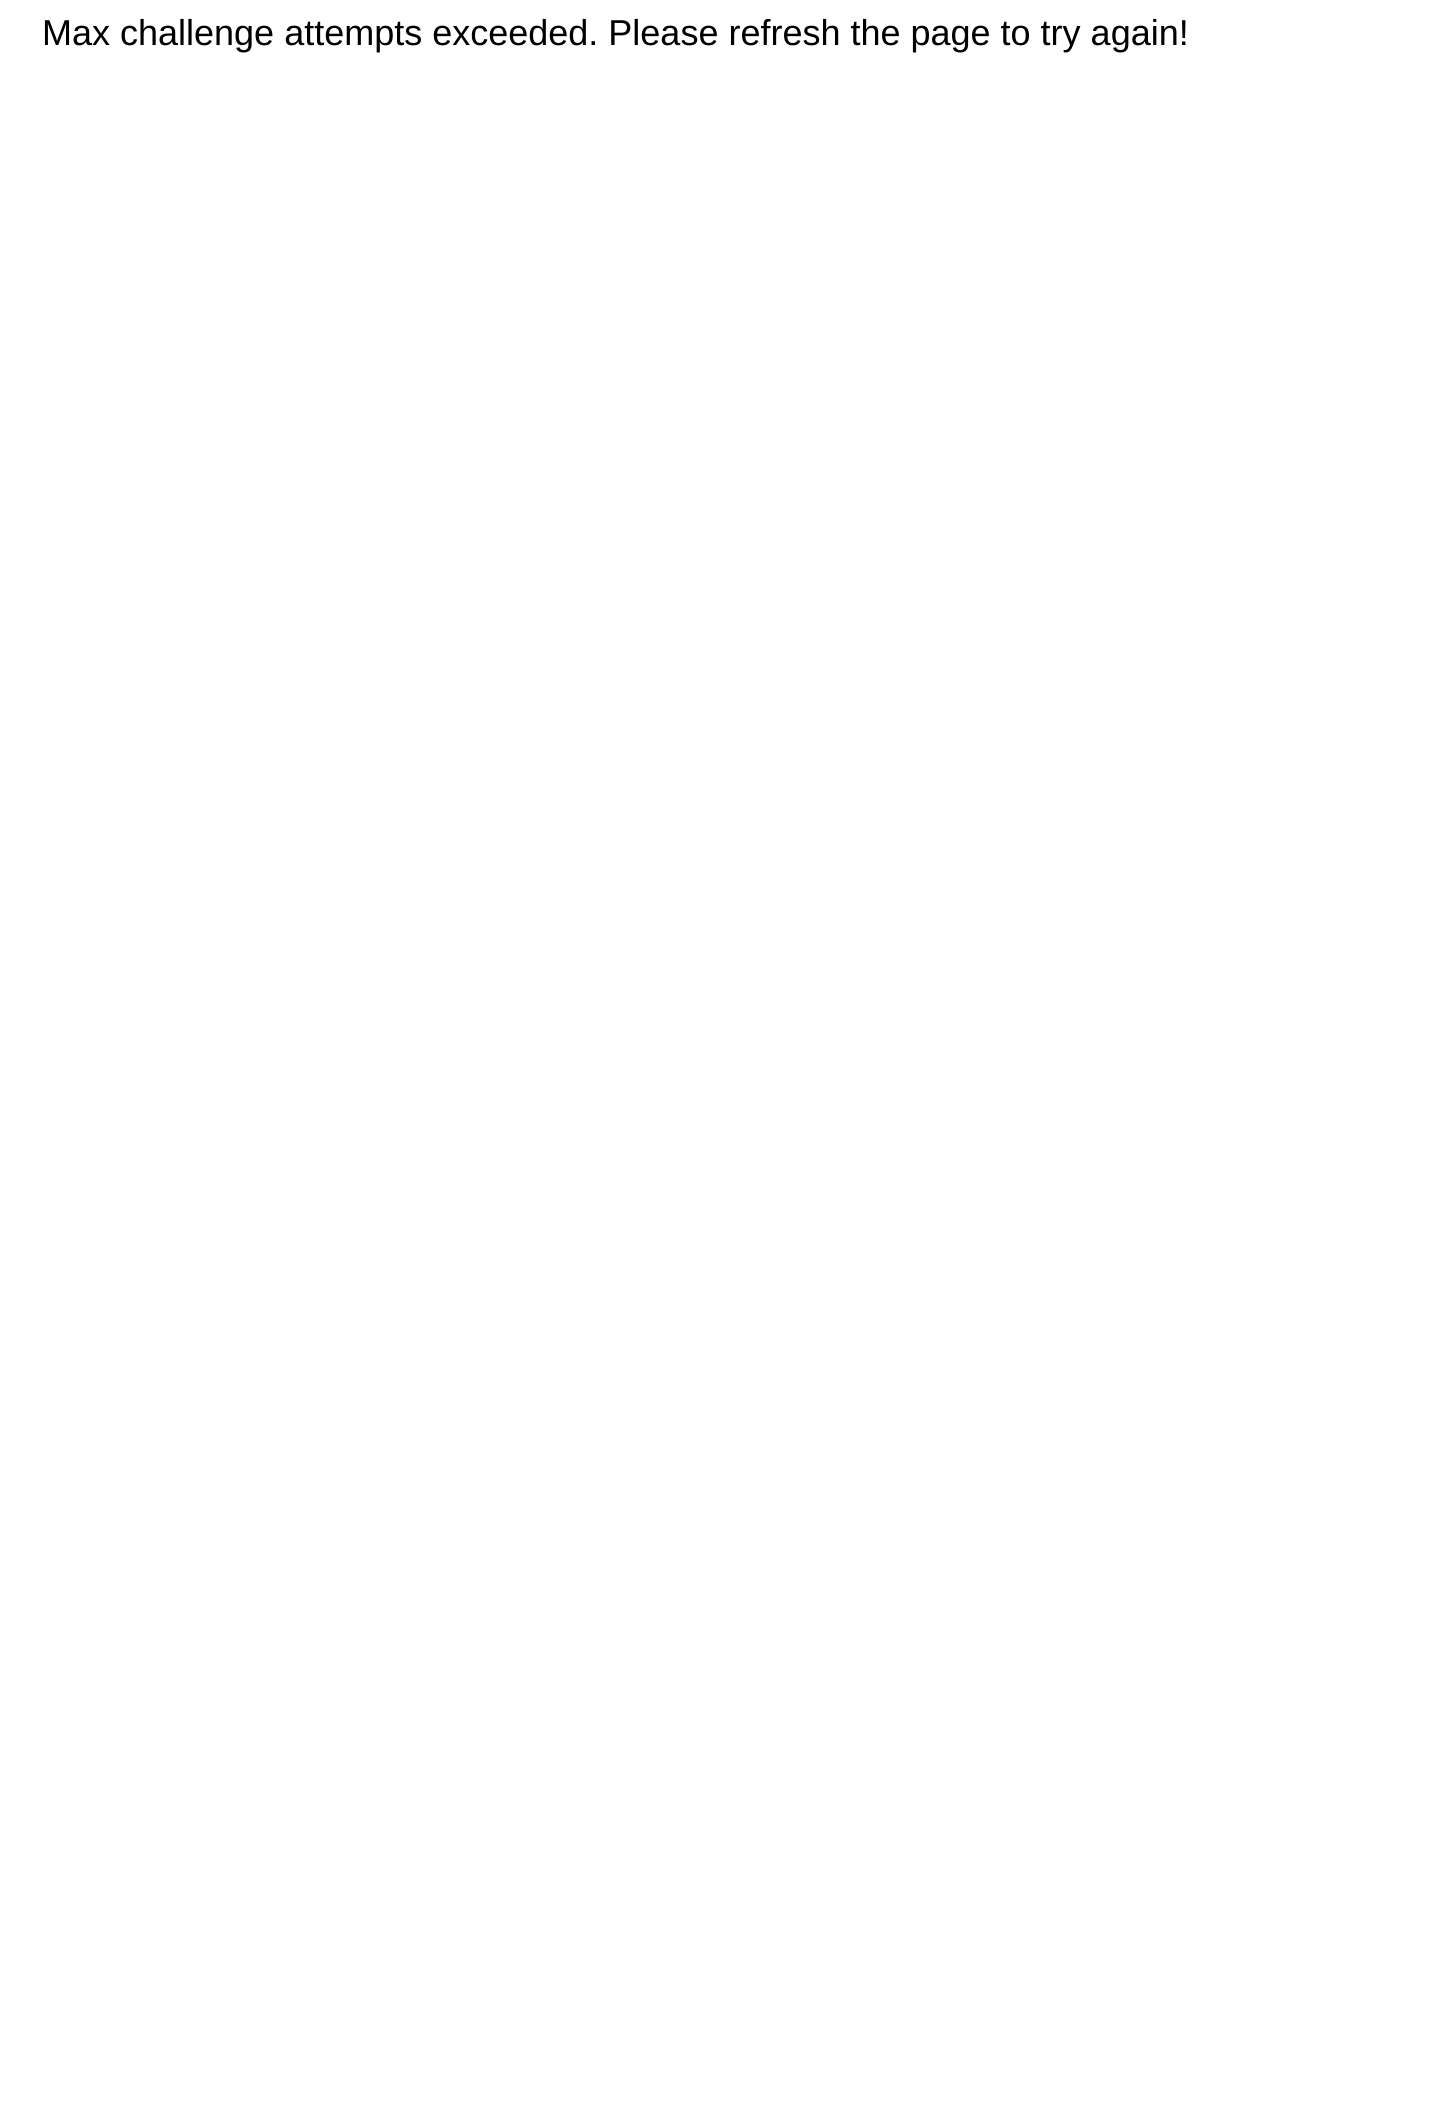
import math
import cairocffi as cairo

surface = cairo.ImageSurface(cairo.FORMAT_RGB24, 1436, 2122)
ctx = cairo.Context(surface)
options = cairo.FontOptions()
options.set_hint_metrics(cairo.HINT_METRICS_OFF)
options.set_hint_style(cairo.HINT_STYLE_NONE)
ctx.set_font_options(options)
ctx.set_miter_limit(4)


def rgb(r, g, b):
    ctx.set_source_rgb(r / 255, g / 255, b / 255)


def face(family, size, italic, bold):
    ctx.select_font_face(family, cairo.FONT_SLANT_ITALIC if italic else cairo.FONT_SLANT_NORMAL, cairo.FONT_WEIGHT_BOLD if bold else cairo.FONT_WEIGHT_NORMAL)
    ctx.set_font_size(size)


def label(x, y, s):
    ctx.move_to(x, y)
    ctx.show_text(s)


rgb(255, 255, 255)
ctx.paint()
face('Liberation Sans', 36, 0, 0)
rgb(0, 0, 0)
label(42, 45, 'Max challenge attempts exceeded. Please refresh the page to try again!')
surface.write_to_png('render.png')
